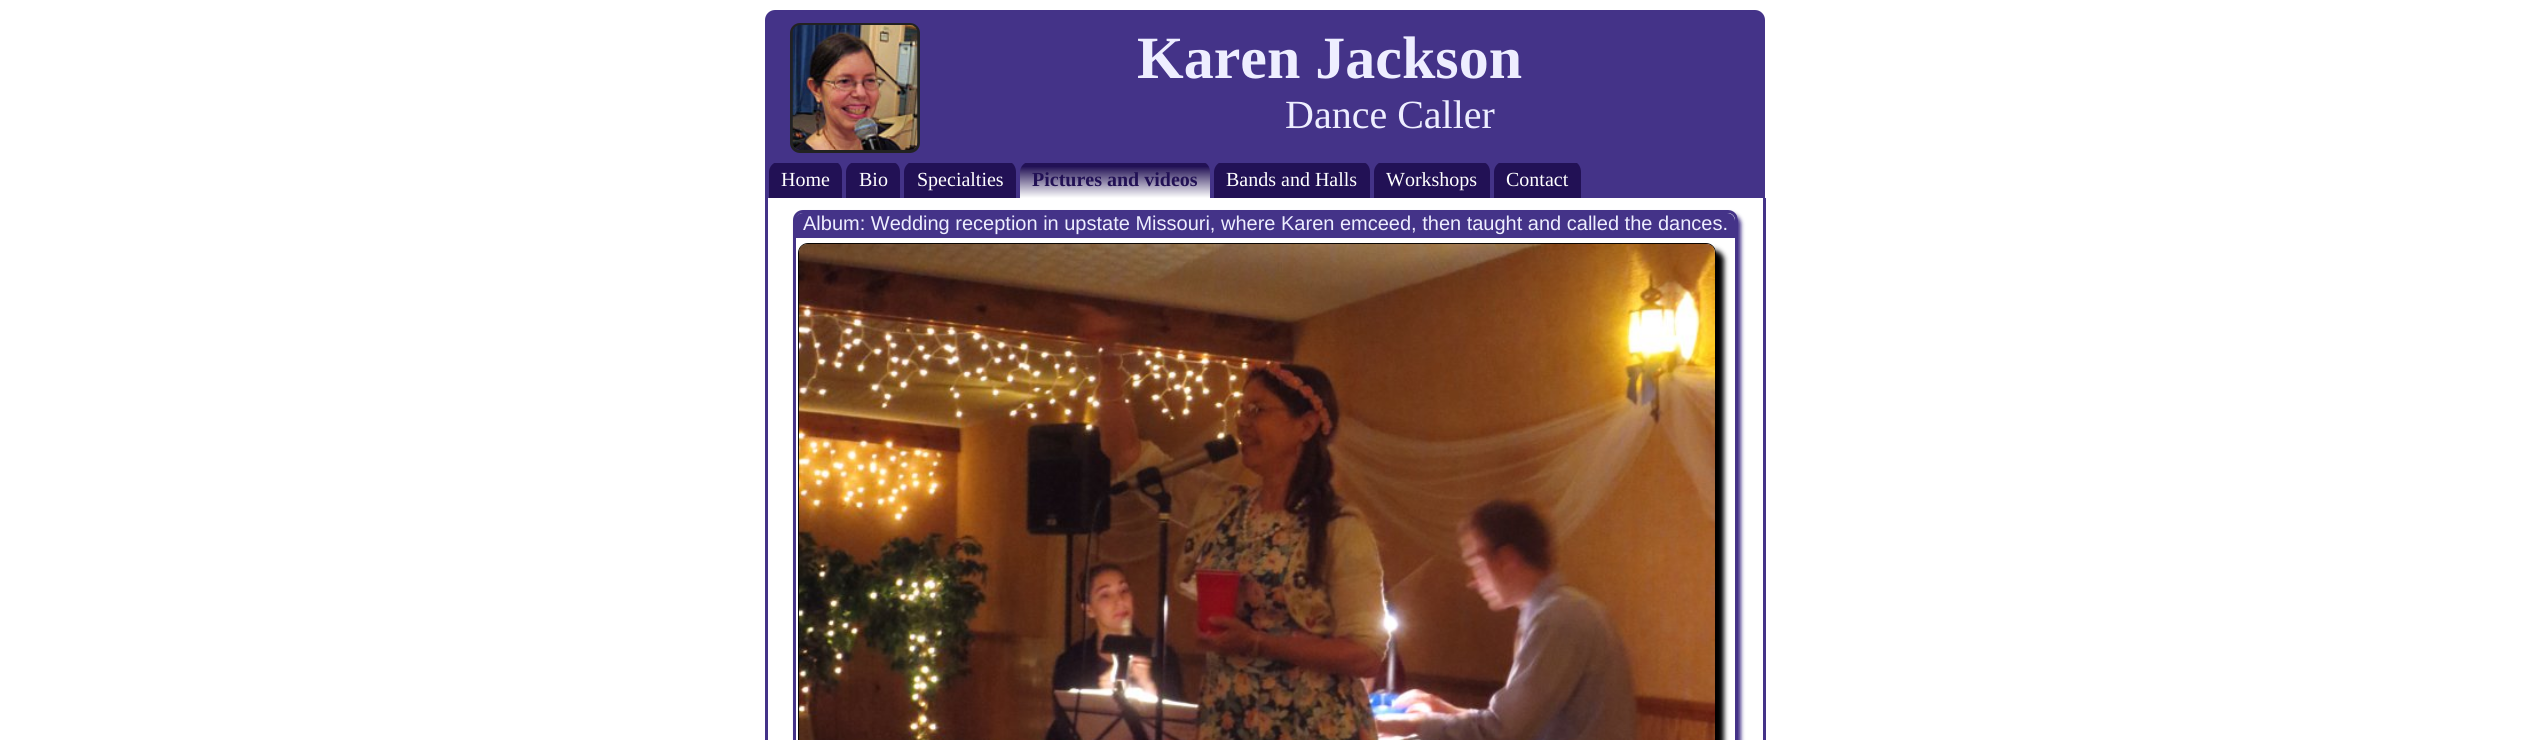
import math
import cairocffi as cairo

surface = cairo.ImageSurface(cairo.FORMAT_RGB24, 2529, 740)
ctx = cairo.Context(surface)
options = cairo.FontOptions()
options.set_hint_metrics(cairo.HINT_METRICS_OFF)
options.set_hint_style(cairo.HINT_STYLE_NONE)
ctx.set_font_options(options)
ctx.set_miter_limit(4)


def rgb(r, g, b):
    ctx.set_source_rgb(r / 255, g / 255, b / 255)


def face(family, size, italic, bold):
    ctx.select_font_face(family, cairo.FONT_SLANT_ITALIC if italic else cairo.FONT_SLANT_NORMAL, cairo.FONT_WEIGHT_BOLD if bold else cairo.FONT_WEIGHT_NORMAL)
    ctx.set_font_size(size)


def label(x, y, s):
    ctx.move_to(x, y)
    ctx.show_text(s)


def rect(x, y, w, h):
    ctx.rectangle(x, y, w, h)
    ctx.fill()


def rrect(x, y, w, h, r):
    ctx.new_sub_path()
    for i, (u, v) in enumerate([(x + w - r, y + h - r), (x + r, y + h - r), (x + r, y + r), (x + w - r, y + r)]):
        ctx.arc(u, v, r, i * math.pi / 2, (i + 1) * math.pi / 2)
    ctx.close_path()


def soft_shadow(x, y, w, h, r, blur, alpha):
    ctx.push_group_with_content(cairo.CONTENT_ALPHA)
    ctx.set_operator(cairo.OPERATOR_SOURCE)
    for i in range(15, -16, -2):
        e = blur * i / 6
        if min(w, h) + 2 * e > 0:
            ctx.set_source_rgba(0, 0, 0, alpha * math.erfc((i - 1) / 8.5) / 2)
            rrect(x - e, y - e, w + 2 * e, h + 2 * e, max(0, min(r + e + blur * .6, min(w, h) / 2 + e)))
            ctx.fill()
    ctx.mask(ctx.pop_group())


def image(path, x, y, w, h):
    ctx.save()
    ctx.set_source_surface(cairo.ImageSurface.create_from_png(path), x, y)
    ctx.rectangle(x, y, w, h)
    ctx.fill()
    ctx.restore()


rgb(255, 255, 255)
ctx.paint()
rgb(68, 51, 136)
rect(765, 163, 1000, 35)
rgb(34, 17, 85)
ctx.new_path()
ctx.move_to(778, 162)
ctx.line_to(835, 162)
ctx.curve_to(839, 162, 842, 167, 842, 172)
ctx.line_to(842, 198)
ctx.line_to(769, 198)
ctx.line_to(769, 172)
ctx.curve_to(769, 167, 773, 162, 778, 162)
ctx.close_path()
ctx.fill()
ctx.new_path()
ctx.move_to(855, 162)
ctx.line_to(892, 162)
ctx.curve_to(897, 162, 900, 167, 900, 172)
ctx.line_to(900, 198)
ctx.line_to(846, 198)
ctx.line_to(846, 172)
ctx.curve_to(846, 167, 850, 162, 855, 162)
ctx.close_path()
ctx.fill()
ctx.new_path()
ctx.move_to(912, 162)
ctx.line_to(1009, 162)
ctx.curve_to(1013, 162, 1016, 167, 1016, 172)
ctx.line_to(1016, 198)
ctx.line_to(904, 198)
ctx.line_to(904, 172)
ctx.curve_to(904, 167, 908, 162, 912, 162)
ctx.close_path()
ctx.fill()
gradient = cairo.LinearGradient(1115, 163, 1115, 198)
gradient.add_color_stop_rgba(0.1, 0.133, 0.067, 0.333, 1)
gradient.add_color_stop_rgba(1, 1, 1, 1, 1)
ctx.set_source(gradient)
ctx.new_path()
ctx.move_to(1029, 162)
ctx.line_to(1202, 162)
ctx.curve_to(1207, 162, 1210, 167, 1210, 172)
ctx.line_to(1210, 198)
ctx.line_to(1020, 198)
ctx.line_to(1020, 172)
ctx.curve_to(1020, 167, 1024, 162, 1029, 162)
ctx.close_path()
ctx.fill()
rgb(34, 17, 85)
ctx.new_path()
ctx.move_to(1222, 162)
ctx.line_to(1362, 162)
ctx.curve_to(1367, 162, 1370, 167, 1370, 172)
ctx.line_to(1370, 198)
ctx.line_to(1214, 198)
ctx.line_to(1214, 172)
ctx.curve_to(1214, 167, 1218, 162, 1222, 162)
ctx.close_path()
ctx.fill()
ctx.new_path()
ctx.move_to(1382, 162)
ctx.line_to(1482, 162)
ctx.curve_to(1487, 162, 1490, 167, 1490, 172)
ctx.line_to(1490, 198)
ctx.line_to(1374, 198)
ctx.line_to(1374, 172)
ctx.curve_to(1374, 167, 1378, 162, 1382, 162)
ctx.close_path()
ctx.fill()
ctx.new_path()
ctx.move_to(1502, 162)
ctx.line_to(1574, 162)
ctx.curve_to(1578, 162, 1581, 167, 1581, 172)
ctx.line_to(1581, 198)
ctx.line_to(1494, 198)
ctx.line_to(1494, 172)
ctx.curve_to(1494, 167, 1498, 162, 1502, 162)
ctx.close_path()
ctx.fill()
rgb(68, 51, 136)
ctx.new_path()
ctx.move_to(775, 10)
ctx.line_to(1755, 10)
ctx.curve_to(1760.5, 10, 1765, 14.5, 1765, 20)
ctx.line_to(1765, 163)
ctx.line_to(765, 163)
ctx.line_to(765, 20)
ctx.curve_to(765, 14.5, 769.5, 10, 775, 10)
ctx.close_path()
ctx.fill()
rrect(791.5, 24.5, 127, 127, 8.5)
rgb(34, 34, 34)
ctx.set_line_width(3)
ctx.stroke()
image('image0.png', 792, 25, 126, 125)
face('Liberation Serif', 60, 0, 1)
rgb(238, 238, 255)
label(1137, 78, 'Karen Jackson')
face('Liberation Serif', 40, 0, 0)
label(1285, 128, 'Dance Caller')
face('Liberation Serif', 20, 0, 0)
rgb(255, 255, 255)
label(781, 186, 'Home')
label(859, 186, 'Bio')
label(917, 186, 'Specialties')
face('Liberation Serif', 20, 0, 1)
rgb(34, 17, 85)
label(1032, 186, 'Pictures and videos')
face('Liberation Serif', 20, 0, 0)
rgb(255, 255, 255)
label(1226, 186, 'Bands and Halls')
label(1386, 186, 'Workshops')
label(1506, 186, 'Contact')
rgb(68, 51, 136)
rect(1763, 198, 3, 542)
rect(765, 198, 3, 542)
ctx.save()
ctx.set_fill_rule(cairo.FILL_RULE_EVEN_ODD)
ctx.new_path()
ctx.move_to(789, 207)
ctx.line_to(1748, 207)
ctx.line_to(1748, 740)
ctx.line_to(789, 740)
ctx.close_path()
ctx.move_to(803, 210)
ctx.line_to(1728, 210)
ctx.curve_to(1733.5, 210, 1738, 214.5, 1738, 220)
ctx.line_to(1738, 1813)
ctx.curve_to(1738, 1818.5, 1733.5, 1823, 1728, 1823)
ctx.line_to(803, 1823)
ctx.curve_to(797.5, 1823, 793, 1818.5, 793, 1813)
ctx.line_to(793, 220)
ctx.curve_to(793, 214.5, 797.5, 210, 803, 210)
ctx.close_path()
ctx.clip()
rgb(68, 51, 136)
soft_shadow(796, 214, 945, 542, 10, 2, 1)
ctx.restore()
rrect(794.5, 211.5, 942, 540, 8.5)
ctx.stroke()
ctx.new_path()
ctx.move_to(803, 213)
ctx.line_to(1727, 213)
ctx.curve_to(1731.5, 213, 1735, 216.5, 1735, 221)
ctx.line_to(1735, 238)
ctx.line_to(795, 238)
ctx.line_to(795, 221)
ctx.curve_to(795, 216.5, 798.5, 213, 803, 213)
ctx.close_path()
ctx.fill()
face('Liberation Sans', 20, 0, 0)
rgb(238, 238, 255)
label(803, 230, 'Album: Wedding reception in upstate Missouri, where Karen emceed, then taught and called the dances.')
ctx.save()
ctx.set_fill_rule(cairo.FILL_RULE_EVEN_ODD)
ctx.new_path()
ctx.move_to(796, 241)
ctx.line_to(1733, 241)
ctx.line_to(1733, 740)
ctx.line_to(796, 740)
ctx.close_path()
ctx.move_to(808, 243)
ctx.line_to(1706, 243)
ctx.curve_to(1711.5, 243, 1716, 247.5, 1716, 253)
ctx.line_to(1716, 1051)
ctx.curve_to(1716, 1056.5, 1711.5, 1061, 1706, 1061)
ctx.line_to(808, 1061)
ctx.curve_to(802.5, 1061, 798, 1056.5, 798, 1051)
ctx.line_to(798, 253)
ctx.curve_to(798, 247.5, 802.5, 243, 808, 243)
ctx.close_path()
ctx.clip()
rgb(0, 0, 0)
soft_shadow(805, 250, 919, 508, 10, 2.5, 1)
ctx.restore()
rrect(798.5, 243.5, 917, 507, 9.5)
rgb(0, 0, 0)
ctx.set_line_width(1)
ctx.stroke()
image('image1.png', 798, 243, 917, 497)
surface.write_to_png('render.png')
